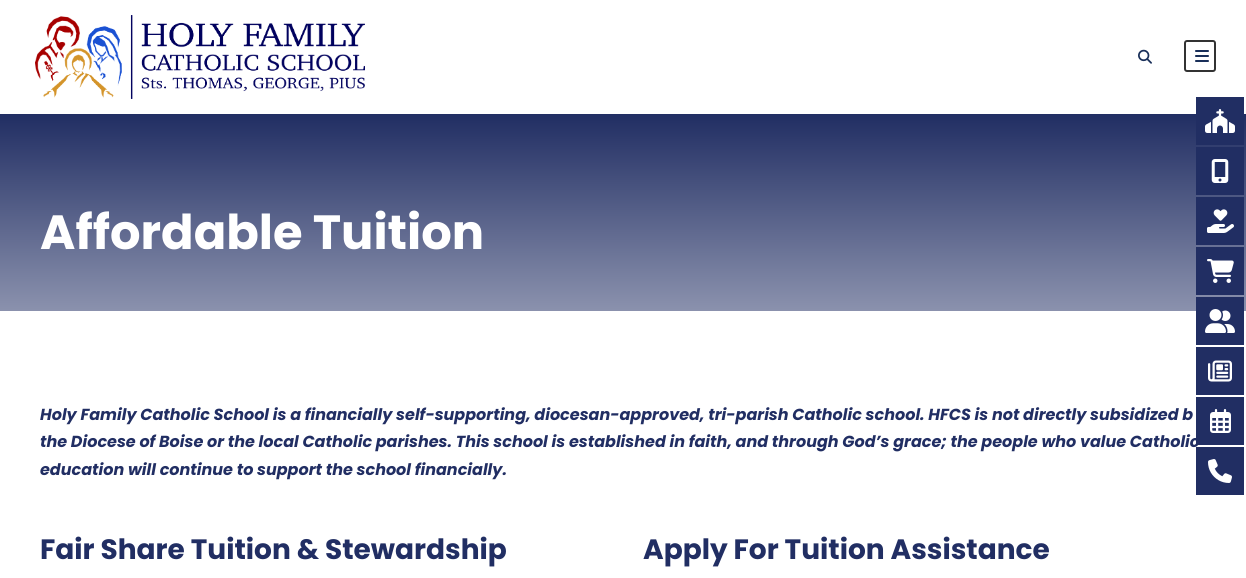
import math
import cairocffi as cairo

surface = cairo.ImageSurface(cairo.FORMAT_RGB24, 1246, 578)
ctx = cairo.Context(surface)
options = cairo.FontOptions()
options.set_hint_metrics(cairo.HINT_METRICS_OFF)
options.set_hint_style(cairo.HINT_STYLE_NONE)
ctx.set_font_options(options)
ctx.set_miter_limit(4)


def rgb(r, g, b):
    ctx.set_source_rgb(r / 255, g / 255, b / 255)


def face(family, size, italic, bold):
    ctx.select_font_face(family, cairo.FONT_SLANT_ITALIC if italic else cairo.FONT_SLANT_NORMAL, cairo.FONT_WEIGHT_BOLD if bold else cairo.FONT_WEIGHT_NORMAL)
    ctx.set_font_size(size)


def label(x, y, s):
    ctx.move_to(x, y)
    ctx.show_text(s)


def rect(x, y, w, h):
    ctx.rectangle(x, y, w, h)
    ctx.fill()


def rrect(x, y, w, h, r):
    ctx.new_sub_path()
    for i, (u, v) in enumerate([(x + w - r, y + h - r), (x + r, y + h - r), (x + r, y + r), (x + w - r, y + r)]):
        ctx.arc(u, v, r, i * math.pi / 2, (i + 1) * math.pi / 2)
    ctx.close_path()


def image(path, x, y, w, h):
    ctx.save()
    ctx.set_source_surface(cairo.ImageSurface.create_from_png(path), x, y)
    ctx.rectangle(x, y, w, h)
    ctx.fill()
    ctx.restore()


rgb(255, 255, 255)
ctx.paint()
image('image0.png', 35, 15, 330, 84)
image('image1.png', 1138, 49, 14, 15)
rrect(1185, 41, 30, 30, 2)
rgb(51, 51, 51)
ctx.stroke()
image('image2.png', 1195, 50, 14, 12)
gradient = cairo.LinearGradient(623, 527, 623, 114)
gradient.add_color_stop_rgba(0, 1, 1, 1, 1)
gradient.add_color_stop_rgba(1, 0.129, 0.18, 0.388, 1)
ctx.set_source(gradient)
rect(0, 114, 1246, 197)
face('Poppins', 48, 0, 1)
rgb(255, 255, 255)
label(40, 249, 'Affordable Tuition')
face('Poppins', 16, 1, 1)
rgb(33, 46, 99)
label(40, 420, 'Holy Family Catholic School is a financially self-supporting, diocesan-approved, tri-parish Catholic school. HFCS is not directly subsidized b')
label(40, 447, 'the Diocese of Boise or the local Catholic parishes. This school is established in faith, and through God’s grace; the people who value Catholic')
label(40, 475, 'education will continue to support the school financially.')
face('Poppins', 28, 0, 1)
label(40, 559, 'Fair Share Tuition & Stewardship')
label(643, 559, 'Apply For Tuition Assistance')
rect(1196, 97, 48, 48)
image('image3.png', 1205, 109, 30, 24)
rect(1196, 147, 48, 48)
image('image4.png', 1211, 159, 18, 24)
rect(1196, 197, 48, 48)
image('image5.png', 1207, 209, 27, 24)
rect(1196, 247, 48, 48)
image('image6.png', 1207, 259, 27, 24)
rect(1196, 297, 48, 48)
image('image7.png', 1205, 309, 30, 24)
rect(1196, 347, 48, 48)
image('image8.png', 1208, 360, 24, 22)
rect(1196, 397, 48, 48)
image('image9.png', 1210, 409, 21, 24)
rect(1196, 447, 48, 48)
image('image10.png', 1208, 459, 24, 24)
surface.write_to_png('render.png')
